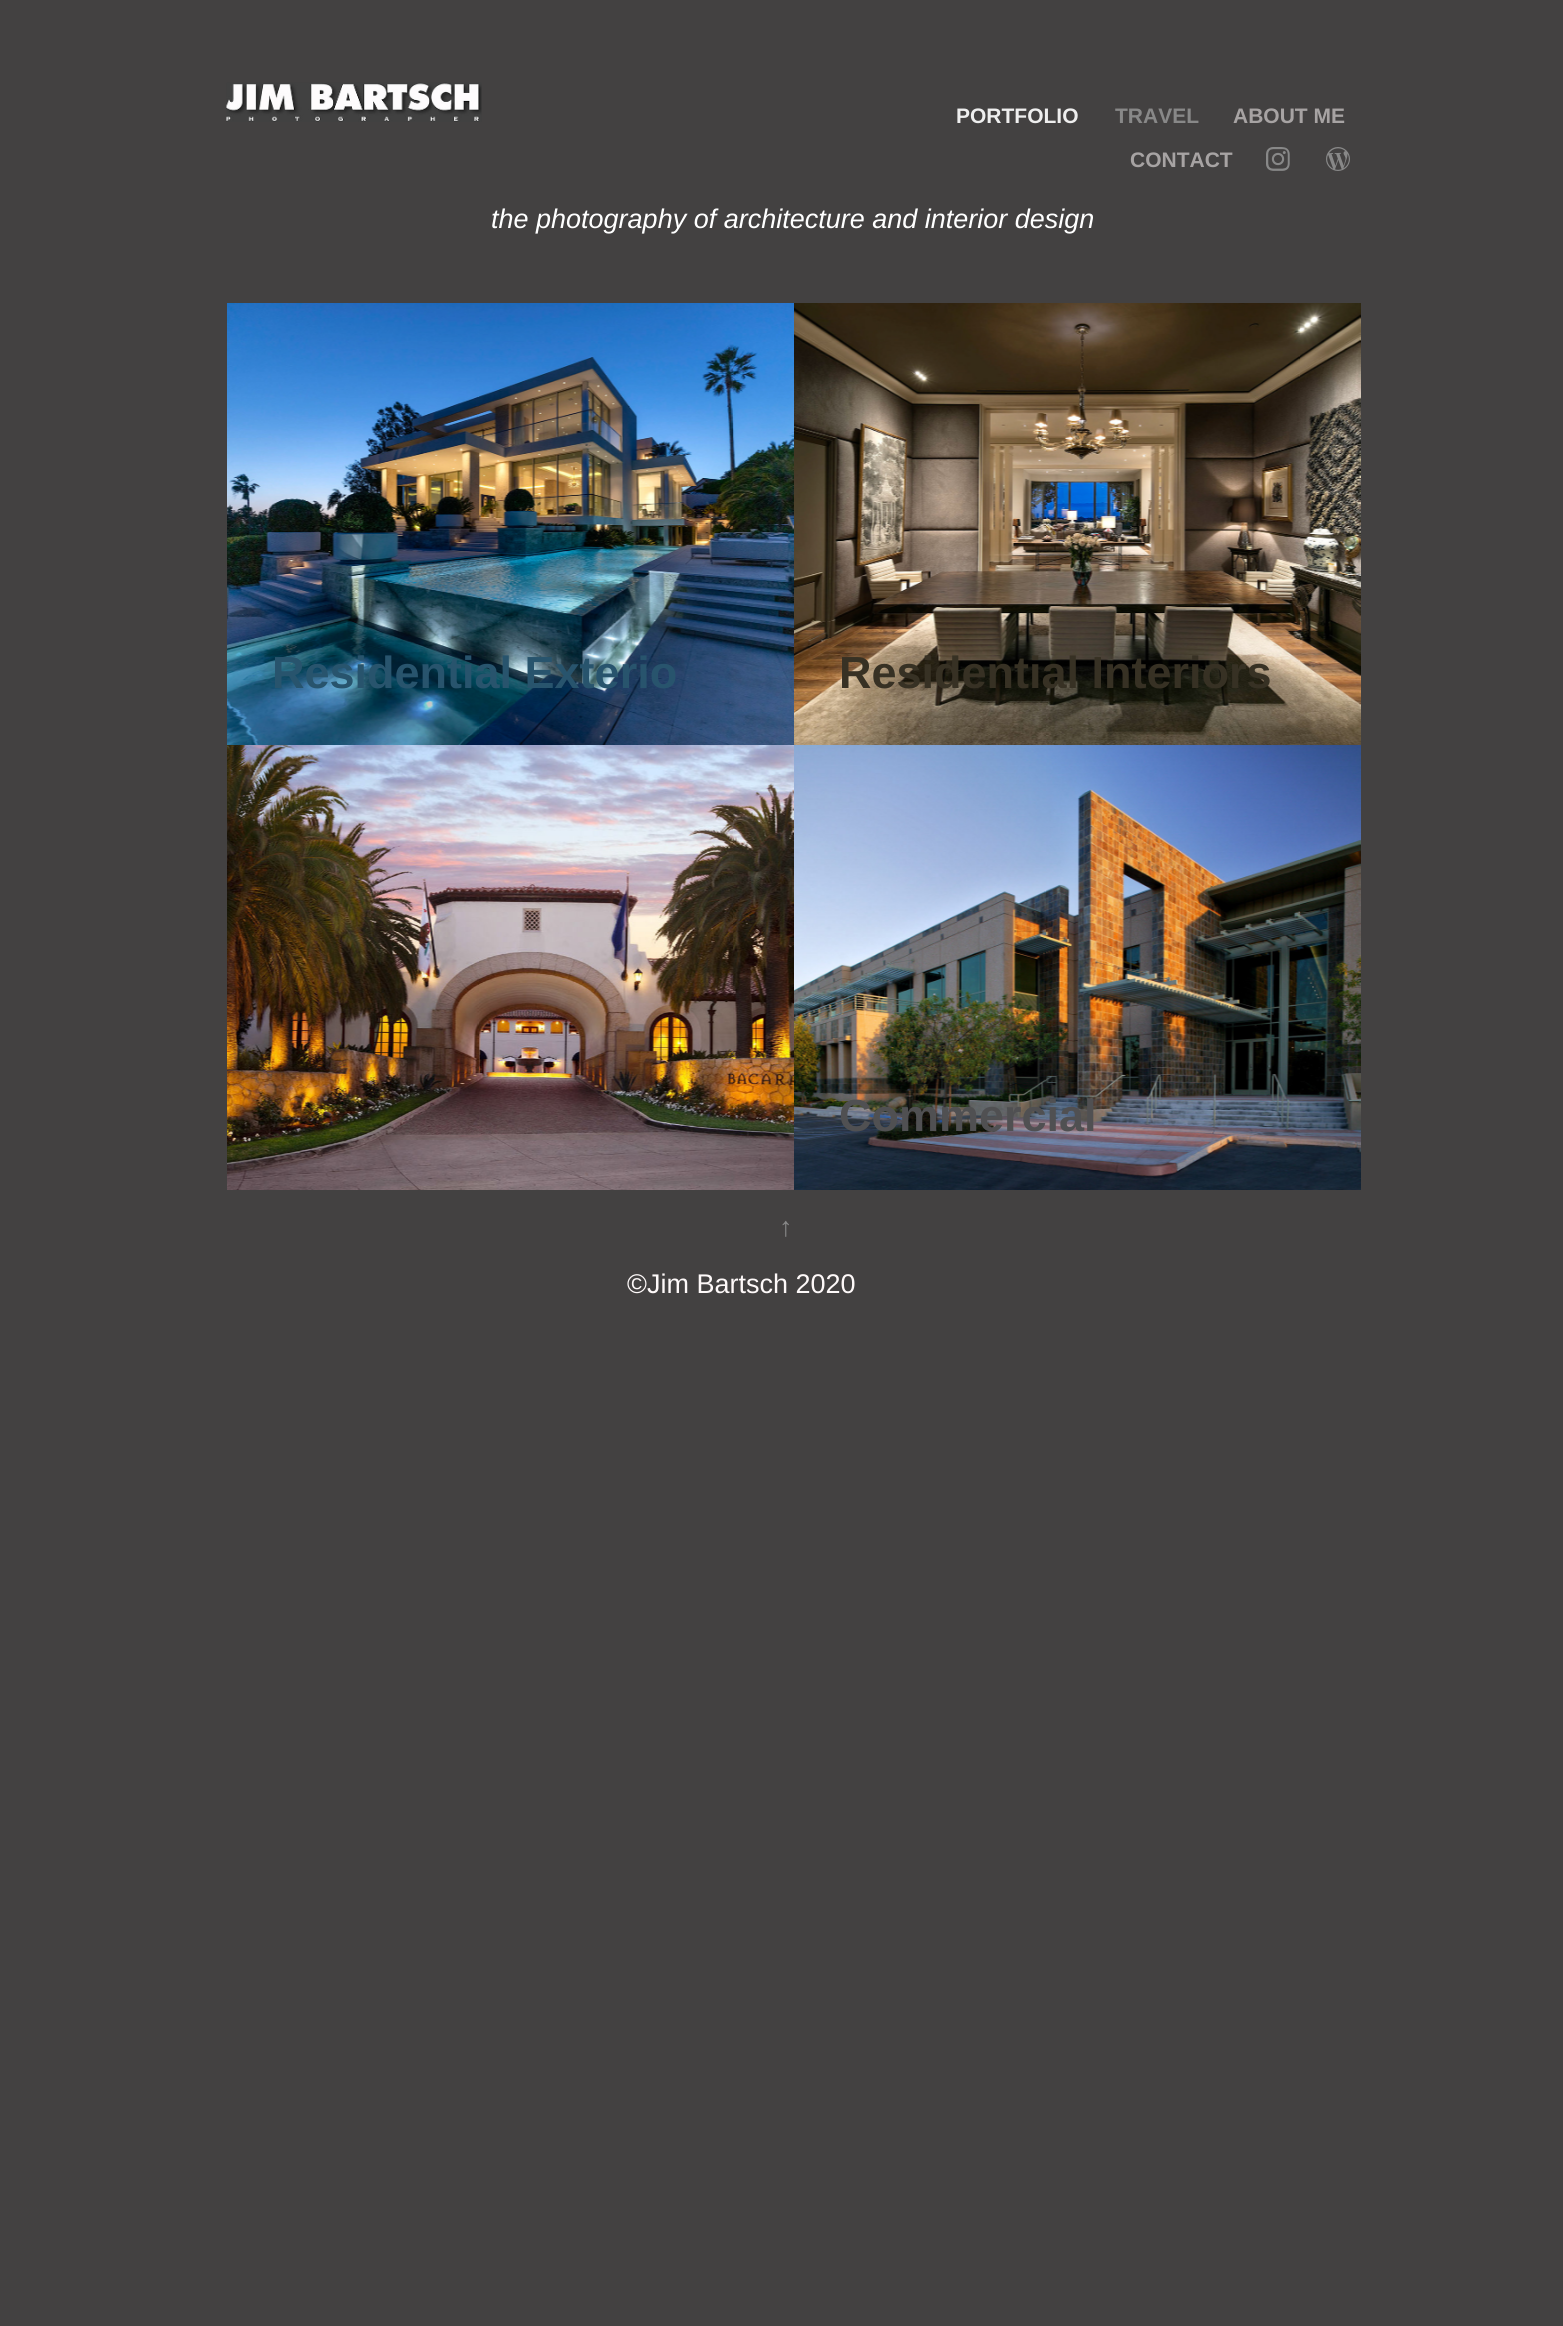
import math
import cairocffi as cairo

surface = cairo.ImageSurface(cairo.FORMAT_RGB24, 1563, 2326)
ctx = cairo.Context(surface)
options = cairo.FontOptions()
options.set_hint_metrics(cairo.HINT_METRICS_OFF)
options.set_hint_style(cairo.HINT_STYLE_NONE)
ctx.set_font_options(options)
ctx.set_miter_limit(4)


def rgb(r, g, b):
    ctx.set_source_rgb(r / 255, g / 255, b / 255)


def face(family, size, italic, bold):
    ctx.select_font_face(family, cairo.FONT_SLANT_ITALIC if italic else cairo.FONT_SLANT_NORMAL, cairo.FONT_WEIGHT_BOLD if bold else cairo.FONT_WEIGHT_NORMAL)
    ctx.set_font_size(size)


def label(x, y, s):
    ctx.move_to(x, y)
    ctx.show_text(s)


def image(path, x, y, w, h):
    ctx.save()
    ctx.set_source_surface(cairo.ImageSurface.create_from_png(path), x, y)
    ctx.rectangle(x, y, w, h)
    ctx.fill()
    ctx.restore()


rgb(67, 65, 65)
ctx.paint()
image('image0.png', 226, 82, 256, 40)
face('Liberation Sans', 21, 0, 1)
rgb(238, 238, 238)
label(956, 123, 'PORTFOLIO')
rgb(136, 136, 136)
label(1115, 123, 'TRAVEL')
rgb(167, 163, 163)
label(1233, 123, 'ABOUT ME')
label(1130, 167, 'CONTACT')
image('image1.png', 1266, 147, 24, 24)
image('image2.png', 1326, 147, 24, 24)
face('Liberation Sans', 27, 1, 0)
rgb(255, 255, 255)
label(491, 228, 'the photography of architecture and interior design')
image('image3.png', 227, 303, 567, 442)
face('Liberation Sans', 45, 0, 1)
rgb(40, 84, 109)
label(272, 688, 'Residential Exterio')
image('image4.png', 794, 303, 567, 442)
rgb(55, 49, 36)
label(839, 688, 'Residential Interiors')
image('image5.png', 227, 745, 567, 445)
image('image6.png', 794, 745, 567, 445)
rgb(80, 80, 82)
label(839, 1131, 'Commercial')
face('Liberation Sans', 27, 0, 0)
rgb(136, 136, 136)
label(779, 1236, '↑')
rgb(254, 249, 249)
label(627, 1293, '©Jim Bartsch 2020')
surface.write_to_png('render.png')
